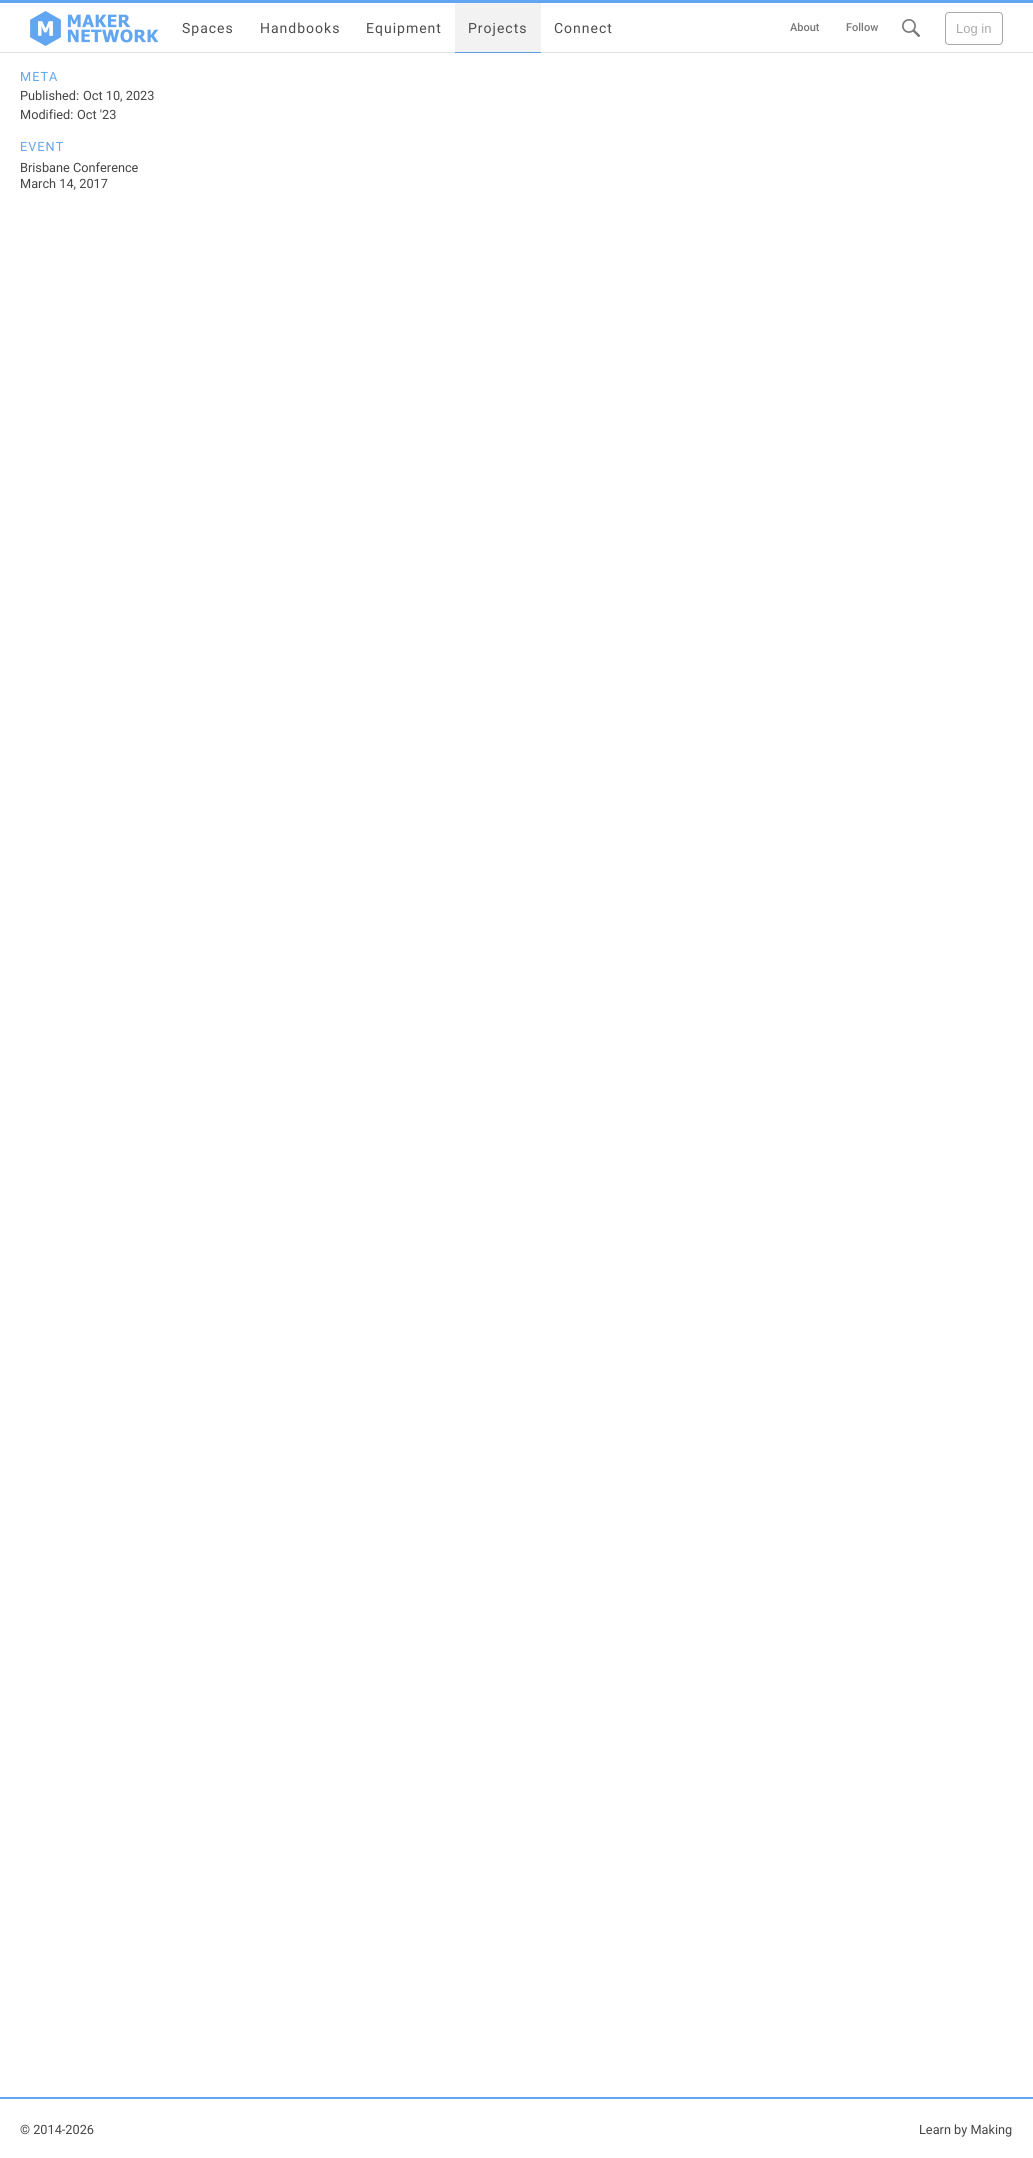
import math
import cairocffi as cairo

surface = cairo.ImageSurface(cairo.FORMAT_RGB24, 1033, 2158)
ctx = cairo.Context(surface)
options = cairo.FontOptions()
options.set_hint_metrics(cairo.HINT_METRICS_OFF)
options.set_hint_style(cairo.HINT_STYLE_NONE)
ctx.set_font_options(options)
ctx.set_miter_limit(4)


def rgb(r, g, b):
    ctx.set_source_rgb(r / 255, g / 255, b / 255)


def face(family, size, italic, bold):
    ctx.select_font_face(family, cairo.FONT_SLANT_ITALIC if italic else cairo.FONT_SLANT_NORMAL, cairo.FONT_WEIGHT_BOLD if bold else cairo.FONT_WEIGHT_NORMAL)
    ctx.set_font_size(size)


def label(x, y, s):
    ctx.move_to(x, y)
    ctx.show_text(s)


def tracked(x, y, s, letter, word):
    ctx.move_to(x, y)
    for ch in s:
        ctx.show_text(ch)
        ctx.rel_move_to(letter + word * (ch == ' '), 0)


def rect(x, y, w, h):
    ctx.rectangle(x, y, w, h)
    ctx.fill()


def rrect(x, y, w, h, r):
    ctx.new_sub_path()
    for i, (u, v) in enumerate([(x + w - r, y + h - r), (x + r, y + h - r), (x + r, y + r), (x + w - r, y + r)]):
        ctx.arc(u, v, r, i * math.pi / 2, (i + 1) * math.pi / 2)
    ctx.close_path()


def image(path, x, y, w, h):
    ctx.save()
    ctx.set_source_surface(cairo.ImageSurface.create_from_png(path), x, y)
    ctx.rectangle(x, y, w, h)
    ctx.fill()
    ctx.restore()


rgb(255, 255, 255)
ctx.paint()
rgb(242, 242, 242)
rect(455, 3, 86, 49)
rgb(98, 165, 240)
rect(0, 0, 1033, 3)
rgb(224, 224, 224)
rect(0, 52, 1033, 1)
image('image0.png', 30, 11, 129, 35)
face('Roboto', 14, 0, 0)
rgb(76, 76, 76)
tracked(182, 33, 'Spaces', 1, 0)
tracked(260, 33, 'Handbooks', 1, 0)
tracked(366, 33, 'Equipment', 1, 0)
rgb(93, 157, 228)
rect(455, 52, 86, 1)
rgb(76, 76, 76)
tracked(468, 33, 'Projects', 1, 0)
tracked(554, 33, 'Connect', 1, 0)
face('Roboto Medium', 11, 0, 0)
rgb(121, 120, 120)
label(790, 31, 'About')
label(846, 31, 'Follow')
image('image1.png', 902, 19, 18, 18)
rrect(945.5, 12.5, 57, 32, 3.5)
rgb(169, 169, 169)
ctx.set_line_width(1)
ctx.stroke()
face('Liberation Sans', 13, 0, 0)
label(956, 33, 'Log in')
face('Roboto', 12.75, 0, 0)
rgb(98, 165, 240)
tracked(20, 81, 'META', 1, 0)
rgb(68, 68, 68)
label(20, 100, 'Published:')
label(83, 100, 'Oct 10, 2023')
label(20, 119, 'Modified:')
label(77, 119, 'Oct \'23')
rgb(98, 165, 240)
tracked(20, 151, 'EVENT', 1, 0)
rgb(68, 68, 68)
label(20, 172, 'Brisbane Conference')
label(20, 188, 'March 14, 2017')
rgb(98, 165, 240)
rect(0, 2097, 1033, 2)
rgb(68, 68, 68)
label(20, 2134, '© 2014-2026')
label(919, 2134, 'Learn by Making')
surface.write_to_png('render.png')
